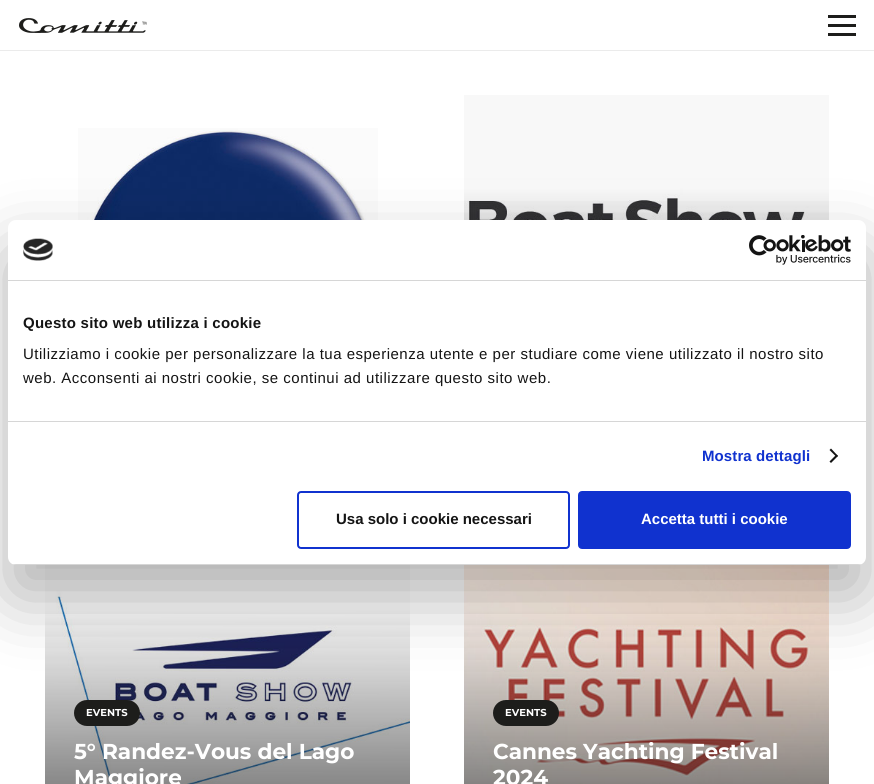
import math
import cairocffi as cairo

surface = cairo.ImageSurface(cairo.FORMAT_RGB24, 874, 784)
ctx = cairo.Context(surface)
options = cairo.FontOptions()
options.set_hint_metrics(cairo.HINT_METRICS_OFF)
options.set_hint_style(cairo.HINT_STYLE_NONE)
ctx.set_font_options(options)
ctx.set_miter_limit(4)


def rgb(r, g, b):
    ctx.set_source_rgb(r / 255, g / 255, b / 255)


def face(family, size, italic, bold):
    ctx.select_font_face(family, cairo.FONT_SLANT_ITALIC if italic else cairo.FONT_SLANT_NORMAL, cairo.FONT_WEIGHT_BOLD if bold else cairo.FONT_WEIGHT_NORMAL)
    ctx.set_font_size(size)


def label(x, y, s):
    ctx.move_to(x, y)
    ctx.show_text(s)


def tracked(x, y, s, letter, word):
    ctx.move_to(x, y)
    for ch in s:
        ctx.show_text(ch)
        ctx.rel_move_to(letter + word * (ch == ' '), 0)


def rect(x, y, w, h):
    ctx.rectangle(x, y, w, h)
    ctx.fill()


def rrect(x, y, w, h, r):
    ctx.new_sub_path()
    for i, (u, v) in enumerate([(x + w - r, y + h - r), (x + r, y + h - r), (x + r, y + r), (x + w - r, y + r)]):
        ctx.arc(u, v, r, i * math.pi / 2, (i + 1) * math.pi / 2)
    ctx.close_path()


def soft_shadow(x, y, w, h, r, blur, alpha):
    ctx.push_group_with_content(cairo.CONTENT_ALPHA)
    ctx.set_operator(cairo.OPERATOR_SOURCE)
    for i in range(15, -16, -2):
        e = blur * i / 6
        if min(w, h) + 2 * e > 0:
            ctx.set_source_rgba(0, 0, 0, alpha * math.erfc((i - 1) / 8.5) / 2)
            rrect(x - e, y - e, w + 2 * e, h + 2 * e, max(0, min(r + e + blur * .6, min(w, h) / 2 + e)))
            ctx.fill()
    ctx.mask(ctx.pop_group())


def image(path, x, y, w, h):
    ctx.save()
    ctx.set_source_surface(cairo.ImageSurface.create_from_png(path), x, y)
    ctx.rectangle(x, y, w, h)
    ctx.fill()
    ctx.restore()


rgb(255, 255, 255)
ctx.paint()
image('image3.png', 78, 128, 300, 92)
image('image4.png', 464, 95, 365, 125)
image('image5.png', 45, 565, 365, 219)
image('image6.png', 464, 565, 365, 219)
rgb(0, 0, 0)
soft_shadow(8, 252, 858, 345, 8, 34, 0.3)
rgb(255, 255, 255)
rrect(8, 220, 858, 345, 8)
ctx.fill()
rgb(214, 214, 214)
rect(8, 280, 858, 1)
image('image0.png', 23, 238, 30, 23)
image('image1.png', 749, 235, 102, 30)
rect(8, 421, 858, 1)
face('Liberation Sans', 15, 0, 1)
rgb(20, 20, 20)
tracked(23, 328, 'Questo sito web utilizza i cookie', 0.25, 0)
face('Liberation Sans', 15, 0, 0)
tracked(23, 359, 'Utilizziamo i cookie per personalizzare la tua esperienza utente e per studiare come viene utilizzato il nostro sito', 0.5, 0)
tracked(23, 383, 'web. Acconsenti ai nostri cookie, se continui ad utilizzare questo sito web.', 0.5, 0)
face('Liberation Sans', 15, 0, 1)
rgb(16, 50, 207)
tracked(702, 461, 'Mostra dettagli', 0.1, 0)
rgb(20, 20, 20)
ctx.new_path()
ctx.move_to(831, 448.5)
ctx.line_to(838, 456)
ctx.line_to(836.5, 457)
ctx.line_to(829.5, 450)
ctx.close_path()
ctx.fill()
ctx.new_path()
ctx.move_to(836.5, 454.5)
ctx.line_to(838, 456)
ctx.line_to(831, 463)
ctx.line_to(829.5, 461.5)
ctx.close_path()
ctx.fill()
ctx.save()
rrect(8, 220, 858, 345, 8)
ctx.clip()
rgb(214, 214, 214)
rect(8, 564, 858, 1)
ctx.restore()
rrect(298, 492, 271, 56, 3)
rgb(16, 50, 207)
ctx.stroke()
rgb(20, 20, 20)
label(336, 524, 'Usa solo i cookie necessari')
rgb(16, 50, 207)
rrect(579, 492, 271, 56, 3)
ctx.fill_preserve()
ctx.stroke()
rgb(255, 255, 255)
label(641, 524, 'Accetta tutti i cookie')
rgb(235, 235, 235)
rect(0, 50, 874, 1)
image('image2.png', 19, 18, 128, 15)
rgb(29, 29, 27)
rect(828, 24, 28, 3)
rect(828, 15, 28, 3)
rect(828, 33, 28, 3)
rrect(74, 700, 66, 26, 13)
ctx.fill()
face('Montserrat', 10, 0, 1)
rgb(255, 255, 255)
label(86, 716, 'EVENTS')
face('Montserrat', 21.6, 0, 1)
label(74, 759, '5° Randez-Vous del Lago')
label(74, 785, 'Maggiore')
rgb(29, 29, 27)
rrect(493, 700, 66, 26, 13)
ctx.fill()
face('Montserrat', 10, 0, 1)
rgb(255, 255, 255)
label(505, 716, 'EVENTS')
face('Montserrat', 21.6, 0, 1)
label(493, 759, 'Cannes Yachting Festival')
label(493, 785, '2024')
surface.write_to_png('render.png')
